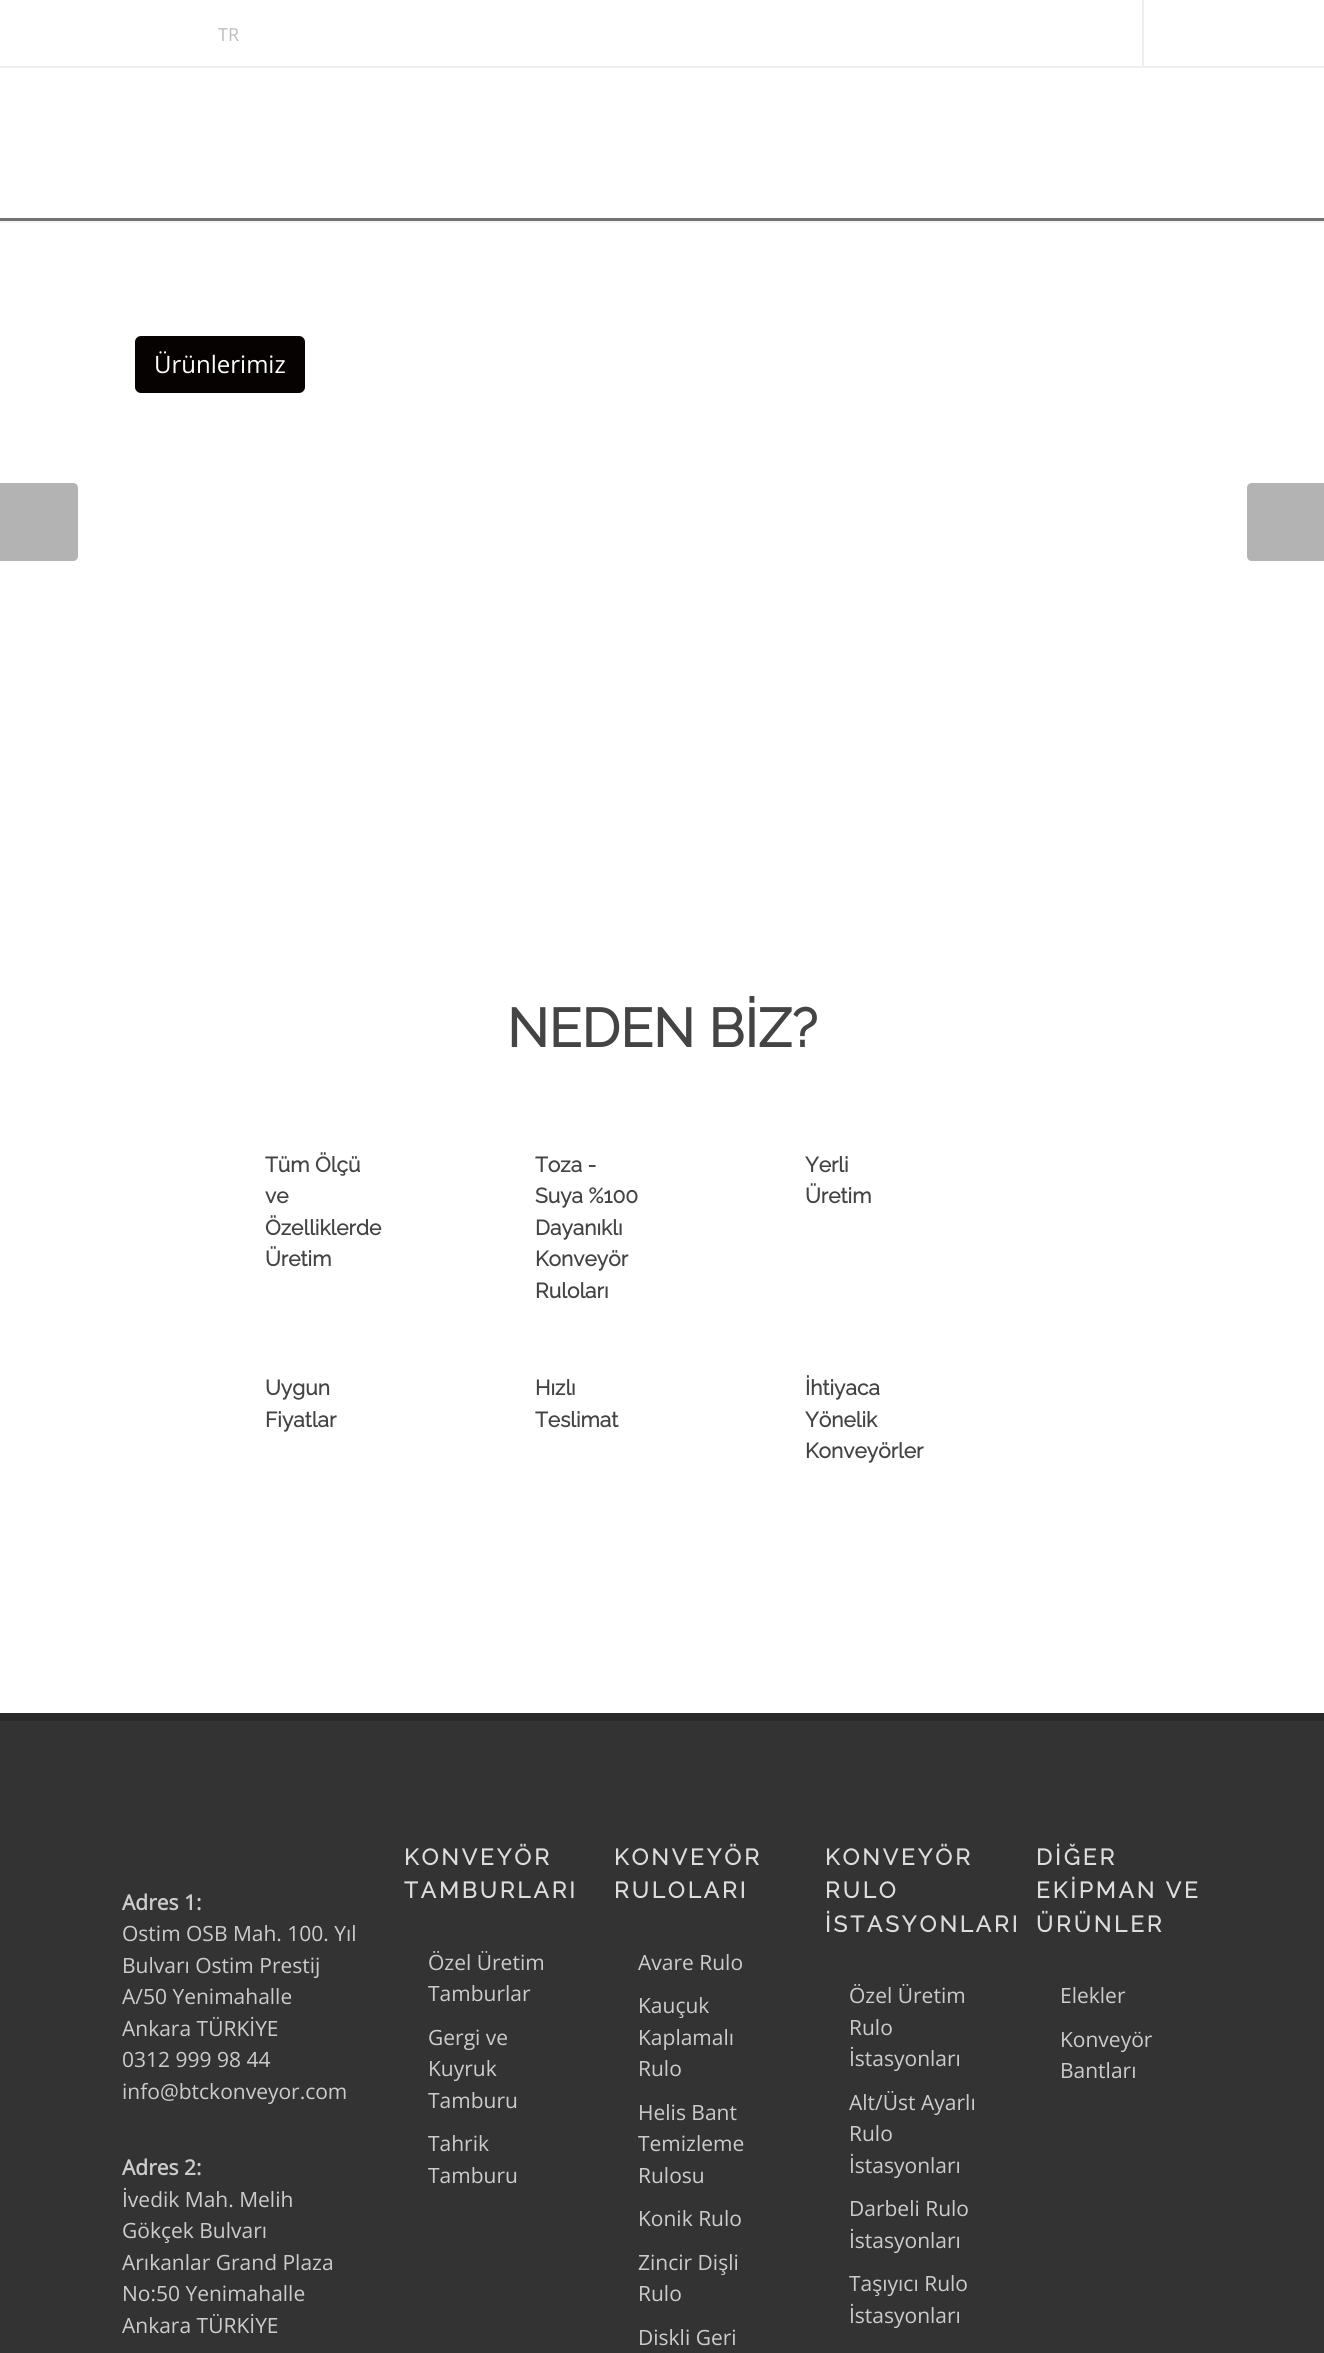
import math
import cairocffi as cairo

surface = cairo.ImageSurface(cairo.FORMAT_RGB24, 1324, 2353)
ctx = cairo.Context(surface)
options = cairo.FontOptions()
options.set_hint_metrics(cairo.HINT_METRICS_OFF)
options.set_hint_style(cairo.HINT_STYLE_NONE)
ctx.set_font_options(options)
ctx.set_miter_limit(4)


def rgb(r, g, b):
    ctx.set_source_rgb(r / 255, g / 255, b / 255)


def face(family, size, italic, bold):
    ctx.select_font_face(family, cairo.FONT_SLANT_ITALIC if italic else cairo.FONT_SLANT_NORMAL, cairo.FONT_WEIGHT_BOLD if bold else cairo.FONT_WEIGHT_NORMAL)
    ctx.set_font_size(size)


def label(x, y, s):
    ctx.move_to(x, y)
    ctx.show_text(s)


def tracked(x, y, s, letter, word):
    ctx.move_to(x, y)
    for ch in s:
        ctx.show_text(ch)
        ctx.rel_move_to(letter + word * (ch == ' '), 0)


def rect(x, y, w, h):
    ctx.rectangle(x, y, w, h)
    ctx.fill()


def rrect(x, y, w, h, r):
    ctx.new_sub_path()
    for i, (u, v) in enumerate([(x + w - r, y + h - r), (x + r, y + h - r), (x + r, y + r), (x + w - r, y + r)]):
        ctx.arc(u, v, r, i * math.pi / 2, (i + 1) * math.pi / 2)
    ctx.close_path()


rgb(255, 255, 255)
ctx.paint()
rgb(238, 238, 238)
rect(0, 66, 1324, 2)
face('Open Sans', 18, 0, 0)
rgb(189, 189, 189)
label(218, 41, 'TR')
rgb(238, 238, 238)
rect(1142, 0, 2, 66)
rgb(245, 245, 245)
rect(0, 221, 1324, 2)
rgb(114, 114, 114)
rect(0, 218, 1324, 3)
rgb(5, 2, 1)
rrect(135, 336, 170, 57, 6)
ctx.fill()
face('Open Sans', 24, 0, 0)
rgb(255, 255, 255)
label(154, 373, 'Ürünlerimiz')
rgb(179, 179, 179)
ctx.new_path()
ctx.move_to(0, 483)
ctx.line_to(73, 483)
ctx.curve_to(76, 483, 78, 485, 78, 488)
ctx.line_to(78, 556)
ctx.curve_to(78, 559, 76, 561, 73, 561)
ctx.line_to(0, 561)
ctx.close_path()
ctx.fill()
ctx.new_path()
ctx.move_to(1252, 483)
ctx.line_to(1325, 483)
ctx.line_to(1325, 561)
ctx.line_to(1252, 561)
ctx.curve_to(1249, 561, 1247, 559, 1247, 556)
ctx.line_to(1247, 488)
ctx.curve_to(1247, 485, 1249, 483, 1252, 483)
ctx.close_path()
ctx.fill()
face('Raleway', 54, 0, 1)
rgb(68, 68, 68)
label(507, 1047, 'NEDEN BİZ?')
face('Raleway', 21, 0, 1)
label(265, 1172, 'Tüm Ölçü')
label(265, 1203, 've')
label(265, 1235, 'Özelliklerde')
label(265, 1266, 'Üretim')
label(535, 1172, 'Toza -')
label(535, 1203, 'Suya %100')
label(535, 1235, 'Dayanıklı')
label(535, 1266, 'Konveyör')
label(535, 1298, 'Ruloları')
label(805, 1172, 'Yerli')
label(805, 1203, 'Üretim')
label(265, 1395, 'Uygun')
label(265, 1427, 'Fiyatlar')
label(535, 1395, 'Hızlı')
label(535, 1427, 'Teslimat')
label(805, 1395, 'İhtiyaca')
label(805, 1427, 'Yönelik')
label(805, 1458, 'Konveyörler')
rgb(51, 51, 51)
rect(0, 1721, 1324, 632)
rgb(41, 41, 41)
rect(0, 1713, 1324, 8)
face('Open Sans', 21, 0, 1)
rgb(204, 204, 204)
label(122, 1910, 'Adres 1:')
face('Open Sans', 21, 0, 0)
label(122, 1941, 'Ostim OSB Mah. 100. Yıl')
label(122, 1973, 'Bulvarı Ostim Prestij')
label(122, 2004, 'A/50 Yenimahalle')
label(122, 2036, 'Ankara TÜRKİYE')
label(122, 2067, '0312 999 98 44')
label(122, 2099, 'info@btckonveyor.com')
face('Open Sans', 21, 0, 1)
label(122, 2175, 'Adres 2:')
face('Open Sans', 21, 0, 0)
label(122, 2207, 'İvedik Mah. Melih')
label(122, 2238, 'Gökçek Bulvarı')
label(122, 2270, 'Arıkanlar Grand Plaza')
label(122, 2301, 'No:50 Yenimahalle')
label(122, 2333, 'Ankara TÜRKİYE')
face('Raleway', 22.5, 0, 1)
rgb(221, 221, 221)
tracked(404, 1865, 'KONVEYÖR', 3, 0)
tracked(404, 1898, 'TAMBURLARI', 3, 0)
face('Open Sans', 21, 0, 0)
rgb(204, 204, 204)
label(428, 1970, 'Özel Üretim')
label(428, 2001, 'Tamburlar')
label(428, 2045, 'Gergi ve')
label(428, 2076, 'Kuyruk')
label(428, 2108, 'Tamburu')
label(428, 2151, 'Tahrik')
label(428, 2183, 'Tamburu')
face('Raleway', 22.5, 0, 1)
rgb(221, 221, 221)
tracked(614, 1865, 'KONVEYÖR', 3, 0)
tracked(614, 1898, 'RULOLARI', 3, 0)
face('Open Sans', 21, 0, 0)
rgb(204, 204, 204)
label(638, 1970, 'Avare Rulo')
label(638, 2013, 'Kauçuk')
label(638, 2045, 'Kaplamalı')
label(638, 2076, 'Rulo')
label(638, 2120, 'Helis Bant')
label(638, 2151, 'Temizleme')
label(638, 2183, 'Rulosu')
label(638, 2226, 'Konik Rulo')
label(638, 2270, 'Zincir Dişli')
label(638, 2301, 'Rulo')
label(638, 2345, 'Diskli Geri')
face('Raleway', 22.5, 0, 1)
rgb(221, 221, 221)
tracked(825, 1865, 'KONVEYÖR', 3, 0)
tracked(825, 1898, 'RULO', 3, 0)
tracked(825, 1932, 'İSTASYONLARI', 3, 0)
face('Open Sans', 21, 0, 0)
rgb(204, 204, 204)
label(849, 2003, 'Özel Üretim')
label(849, 2035, 'Rulo')
label(849, 2066, 'İstasyonları')
label(849, 2110, 'Alt/Üst Ayarlı')
label(849, 2141, 'Rulo')
label(849, 2173, 'İstasyonları')
label(849, 2216, 'Darbeli Rulo')
label(849, 2248, 'İstasyonları')
label(849, 2291, 'Taşıyıcı Rulo')
label(849, 2323, 'İstasyonları')
face('Raleway', 22.5, 0, 1)
rgb(221, 221, 221)
tracked(1036, 1865, 'DİĞER', 3, 0)
tracked(1036, 1898, 'EKİPMAN VE', 3, 0)
tracked(1036, 1932, 'ÜRÜNLER', 3, 0)
face('Open Sans', 21, 0, 0)
rgb(204, 204, 204)
label(1060, 2003, 'Elekler')
label(1060, 2047, 'Konveyör')
label(1060, 2078, 'Bantları')
surface.write_to_png('render.png')
